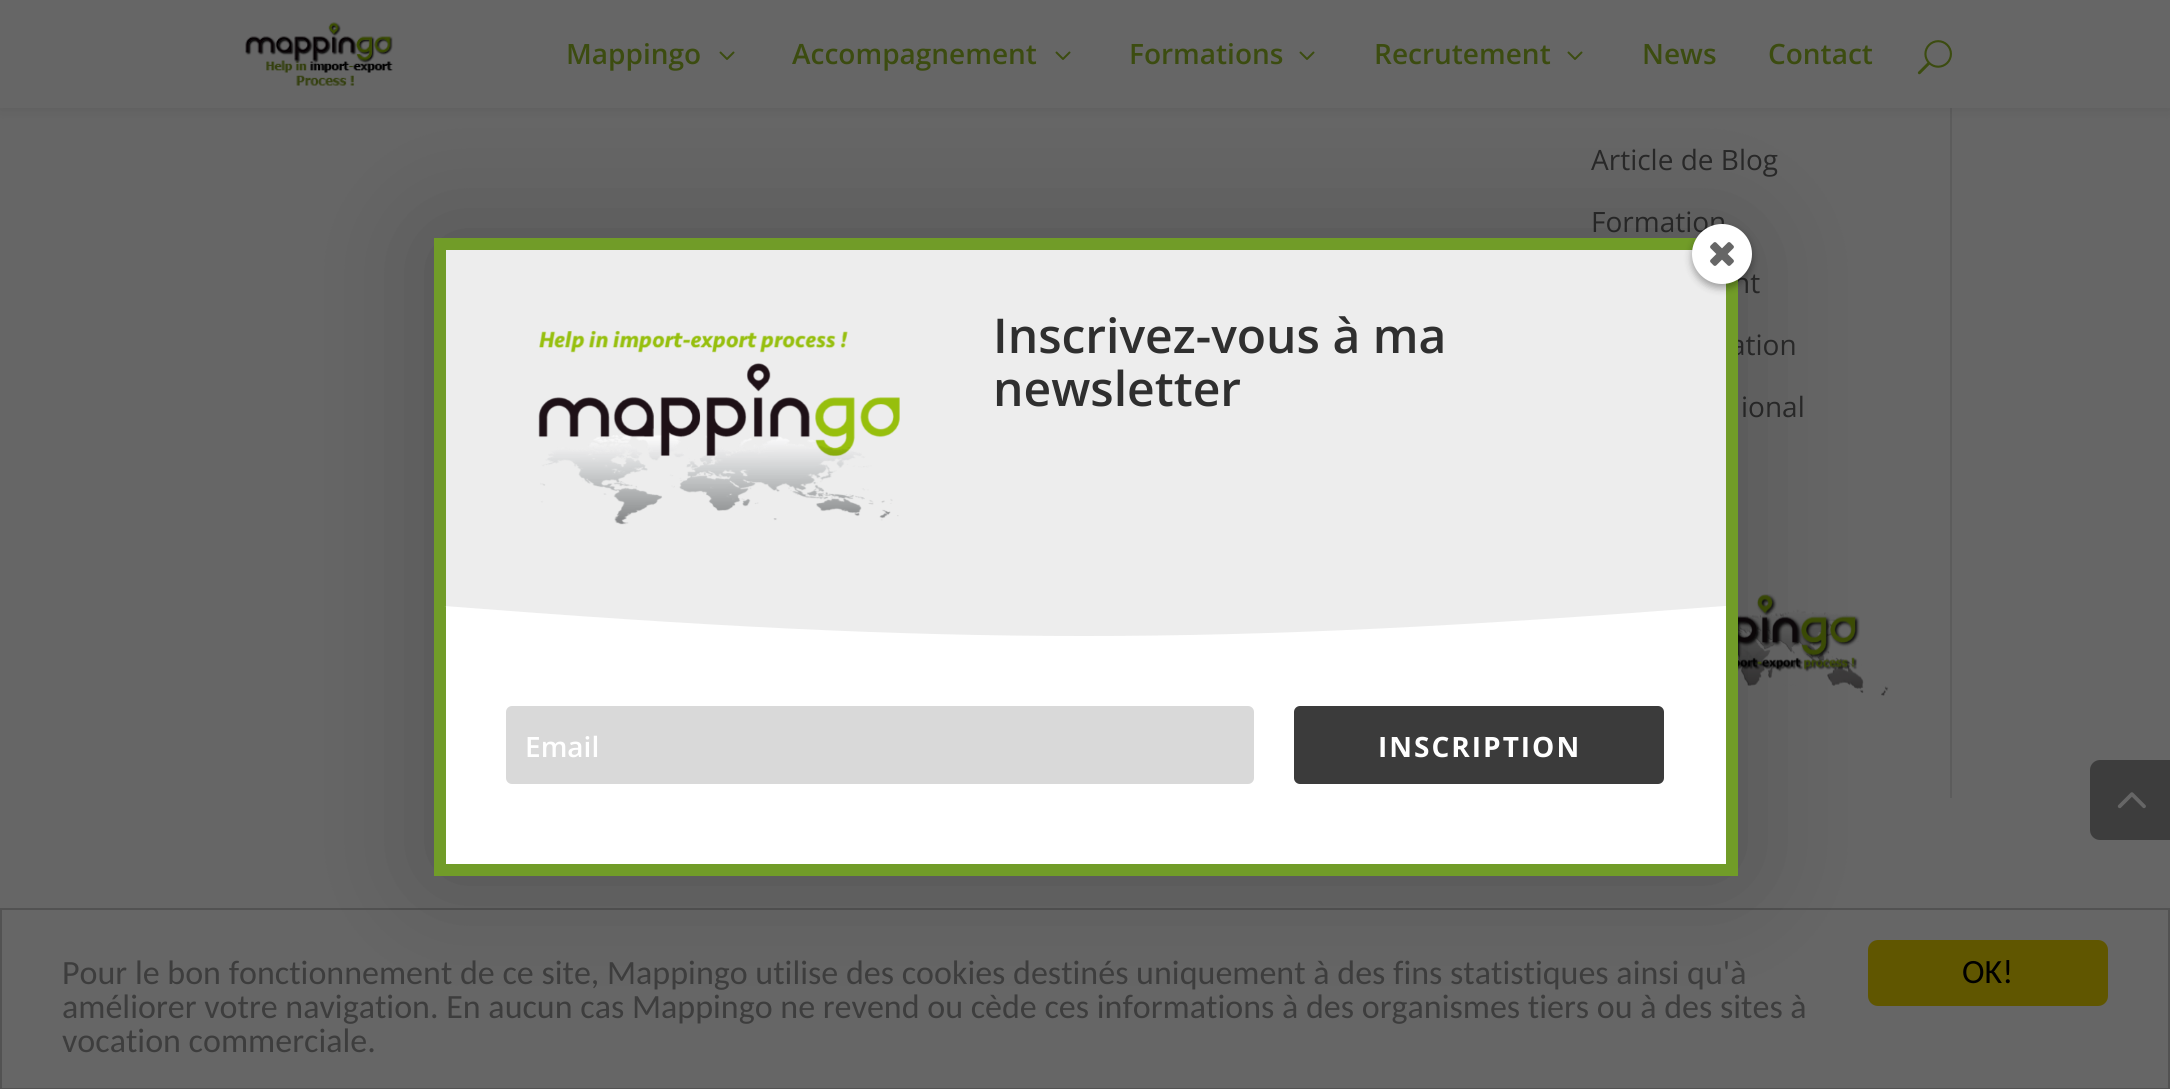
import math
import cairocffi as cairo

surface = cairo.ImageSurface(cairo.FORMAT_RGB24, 2170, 1089)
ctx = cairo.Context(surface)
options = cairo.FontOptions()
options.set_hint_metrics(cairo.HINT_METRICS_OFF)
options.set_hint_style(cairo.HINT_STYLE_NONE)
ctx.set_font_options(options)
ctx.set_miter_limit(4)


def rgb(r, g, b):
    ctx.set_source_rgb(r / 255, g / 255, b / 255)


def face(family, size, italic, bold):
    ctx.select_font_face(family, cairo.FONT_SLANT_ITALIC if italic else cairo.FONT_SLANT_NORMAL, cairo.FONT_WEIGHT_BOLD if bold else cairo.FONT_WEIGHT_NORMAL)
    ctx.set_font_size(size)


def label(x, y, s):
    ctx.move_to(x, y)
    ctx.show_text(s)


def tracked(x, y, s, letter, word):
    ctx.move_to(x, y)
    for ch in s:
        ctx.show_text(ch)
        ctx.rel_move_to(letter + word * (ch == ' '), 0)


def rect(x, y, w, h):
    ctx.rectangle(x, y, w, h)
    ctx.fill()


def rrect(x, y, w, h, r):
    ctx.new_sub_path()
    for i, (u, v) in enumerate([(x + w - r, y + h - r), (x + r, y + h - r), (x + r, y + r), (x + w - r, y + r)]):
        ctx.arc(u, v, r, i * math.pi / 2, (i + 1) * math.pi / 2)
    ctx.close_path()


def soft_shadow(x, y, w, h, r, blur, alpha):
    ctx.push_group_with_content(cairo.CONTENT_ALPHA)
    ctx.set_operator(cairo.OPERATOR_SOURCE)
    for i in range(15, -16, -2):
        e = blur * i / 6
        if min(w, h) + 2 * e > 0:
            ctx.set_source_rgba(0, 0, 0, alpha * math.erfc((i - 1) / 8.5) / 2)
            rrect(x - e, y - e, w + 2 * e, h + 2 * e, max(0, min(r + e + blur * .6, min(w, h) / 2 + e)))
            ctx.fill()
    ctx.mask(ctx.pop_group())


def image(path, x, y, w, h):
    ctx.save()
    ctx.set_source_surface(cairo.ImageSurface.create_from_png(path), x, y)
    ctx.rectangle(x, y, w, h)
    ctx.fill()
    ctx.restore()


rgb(102, 102, 102)
ctx.paint()
rgb(92, 92, 92)
rect(1950, 108, 2, 690)
rgb(0, 0, 0)
soft_shadow(0, 0, 2170, 108, 0, 7, 0.1)
rgb(102, 102, 102)
rect(0, 0, 2170, 108)
image('image0.png', 245, 22, 148, 64)
face('Open Sans SemiBold', 28, 0, 0)
rgb(60, 76, 16)
label(566, 64, 'Mappingo')
image('image1.png', 719, 51, 16, 9)
label(792, 64, 'Accompagnement')
image('image1.png', 1055, 51, 16, 9)
label(1129, 64, 'Formations')
image('image1.png', 1299, 51, 16, 9)
label(1374, 64, 'Recrutement')
image('image1.png', 1567, 51, 16, 9)
label(1642, 64, 'News')
label(1768, 64, 'Contact')
image('image2.png', 1917, 40, 35, 35)
face('Open Sans', 28, 0, 0)
rgb(41, 41, 41)
label(1591, 170, 'Article de Blog')
label(1591, 232, 'Formation')
label(1733, 293, 'nt')
label(1730, 355, 'ation')
label(1741, 417, 'ional')
image('image3.png', 1738, 594, 151, 102)
rgb(61, 61, 61)
ctx.new_path()
ctx.move_to(2100, 760)
ctx.line_to(2170, 760)
ctx.line_to(2170, 840)
ctx.line_to(2100, 840)
ctx.curve_to(2094.5, 840, 2090, 835.5, 2090, 830)
ctx.line_to(2090, 770)
ctx.curve_to(2090, 764.5, 2094.5, 760, 2100, 760)
ctx.close_path()
ctx.fill()
image('image4.png', 2117, 792, 29, 17)
ctx.rectangle(1, 909, 2168, 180)
rgb(82, 82, 82)
ctx.stroke()
rgb(96, 86, 0)
rrect(1868, 940, 240, 66, 10)
ctx.fill()
rgb(0, 0, 0)
soft_shadow(434, 238, 1304, 638, 0, 60, 0.2)
ctx.rectangle(440, 244, 1292, 626)
rgb(113, 156, 40)
ctx.set_line_width(12)
ctx.stroke()
rgb(237, 237, 237)
rect(446, 250, 1280, 356)
rgb(0, 0, 0)
soft_shadow(1692, 228, 60, 60, 30, 4, 0.34)
rgb(255, 255, 255)
ctx.arc(1722, 254, 30, 0, 2 * math.pi)
ctx.fill()
image('image5.png', 1710, 242, 24, 24)
image('image6.png', 538, 330, 362, 195)
face('Open Sans SemiBold', 48, 0, 0)
rgb(47, 47, 47)
label(993, 353, 'Inscrivez-vous à ma')
label(993, 406, 'newsletter')
rgb(255, 255, 255)
rect(446, 606, 1280, 258)
rgb(237, 237, 237)
ctx.new_path()
ctx.move_to(444, 606)
ctx.curve_to(956, 646, 1212, 646, 1724, 606)
ctx.close_path()
ctx.fill()
rgb(217, 217, 217)
rrect(506, 706, 748, 78, 6)
ctx.fill()
face('Open Sans SemiBold', 28, 0, 0)
rgb(255, 255, 255)
label(525, 757, 'Email')
rgb(59, 59, 59)
rrect(1294, 706, 370, 78, 6)
ctx.fill()
face('Open Sans', 28, 0, 1)
rgb(255, 255, 255)
tracked(1378, 757, 'INSCRIPTION', 2, 0)
face('Carlito', 34, 0, 0)
rgb(61, 61, 61)
label(62, 984, 'Pour le bon fonctionnement de ce site, Mappingo utilise des cookies destinés uniquement à des fins statistiques ainsi qu\'à')
label(62, 1018, 'améliorer votre navigation. En aucun cas Mappingo ne revend ou cède ces informations à des organismes tiers ou à des sites à')
label(62, 1052, 'vocation commerciale.')
rgb(0, 0, 0)
label(1962, 983, 'OK!')
surface.write_to_png('render.png')
